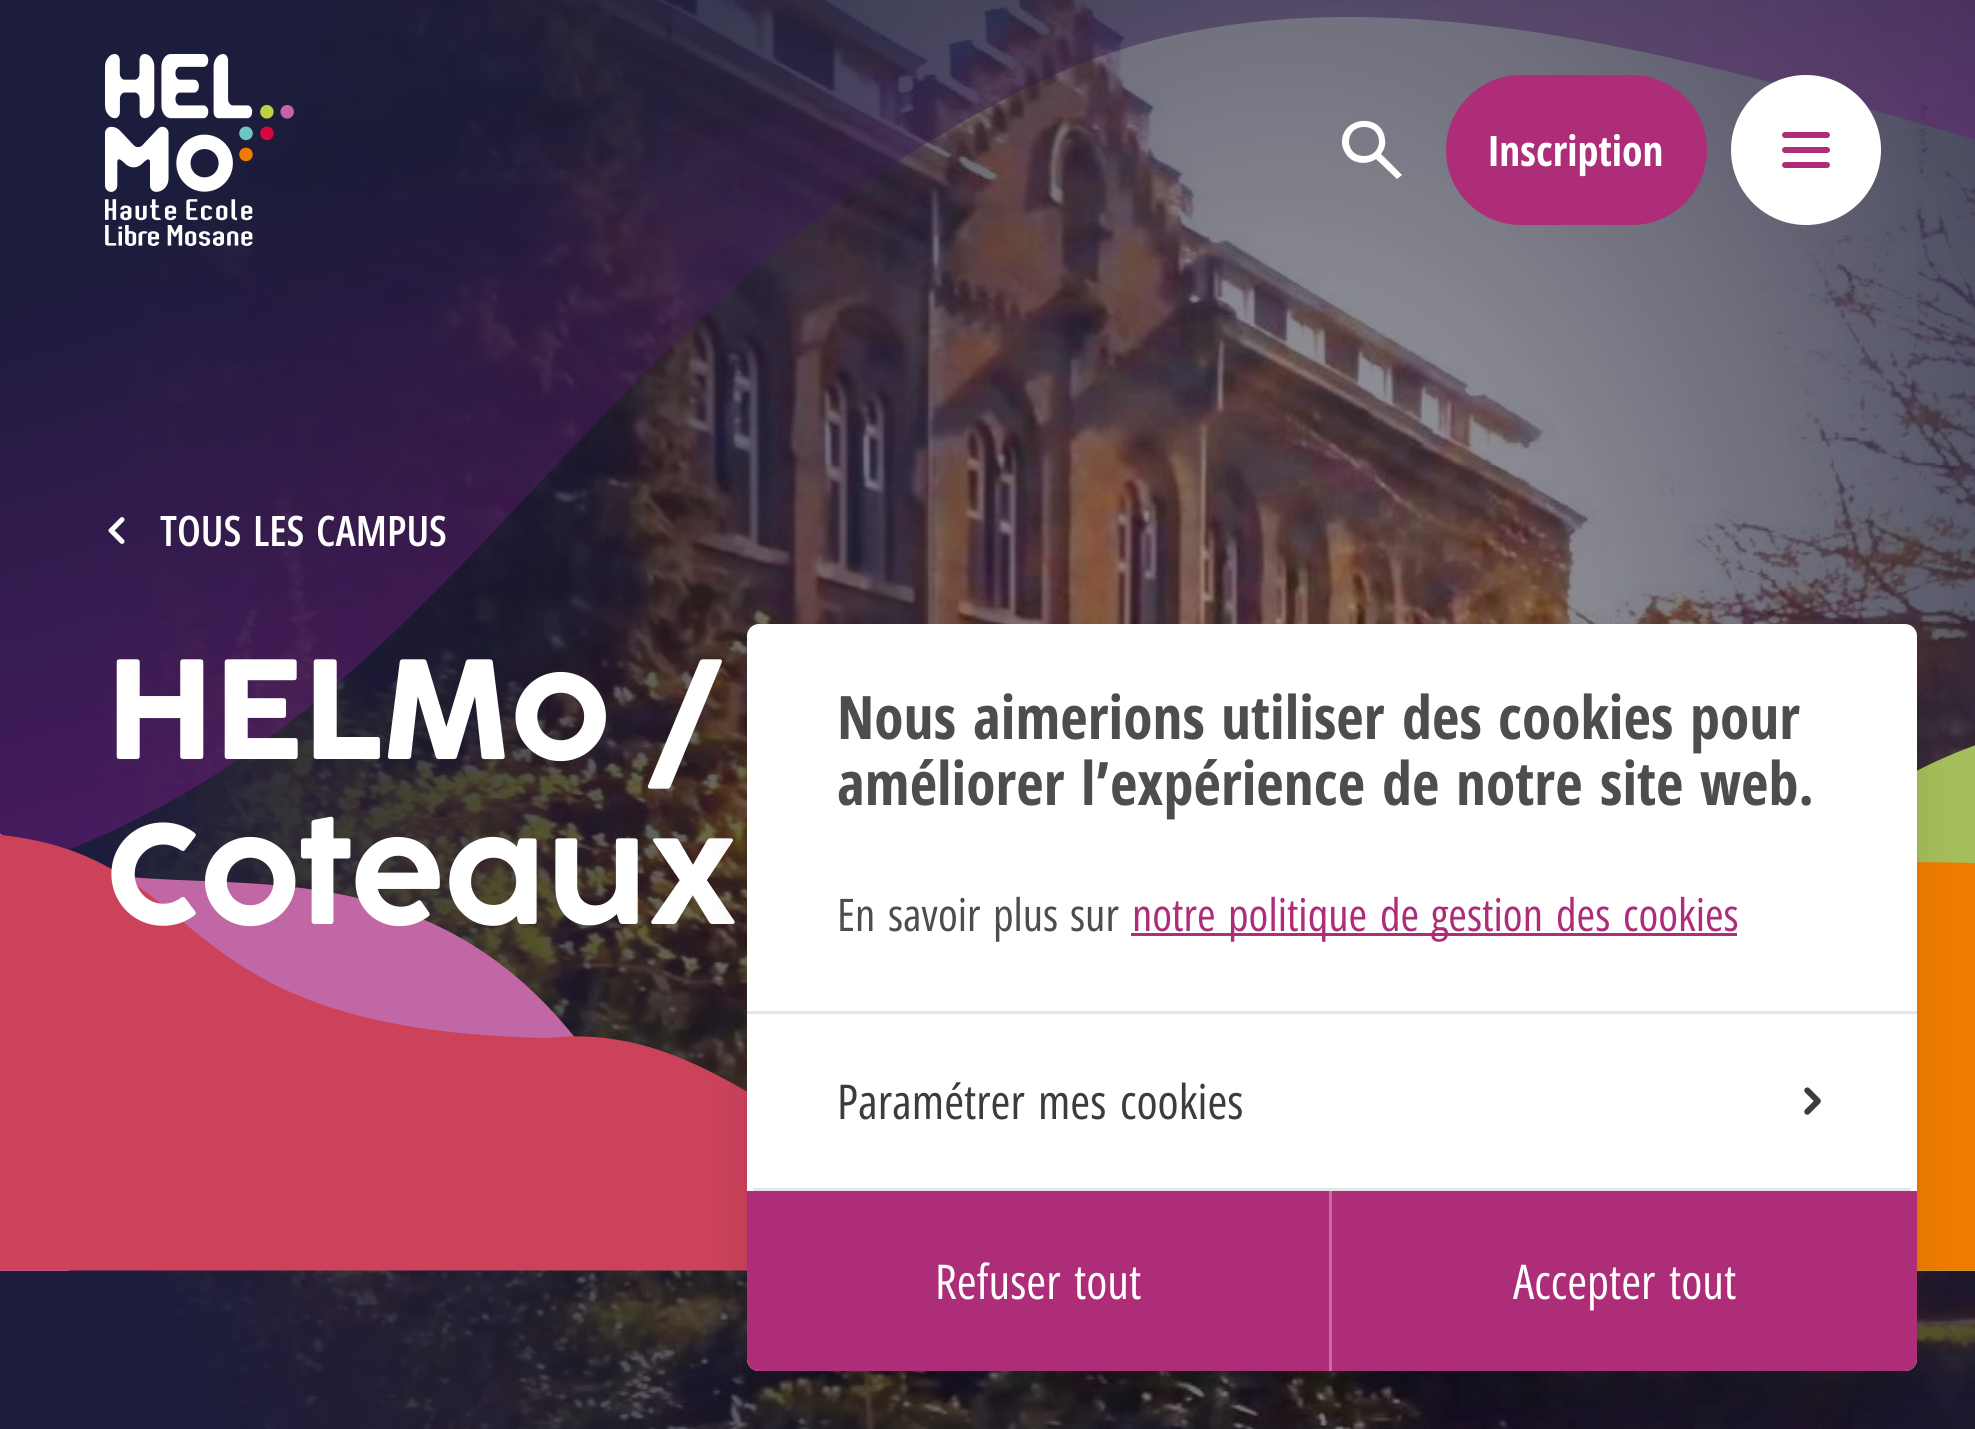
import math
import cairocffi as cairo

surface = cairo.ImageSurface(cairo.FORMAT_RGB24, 1975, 1429)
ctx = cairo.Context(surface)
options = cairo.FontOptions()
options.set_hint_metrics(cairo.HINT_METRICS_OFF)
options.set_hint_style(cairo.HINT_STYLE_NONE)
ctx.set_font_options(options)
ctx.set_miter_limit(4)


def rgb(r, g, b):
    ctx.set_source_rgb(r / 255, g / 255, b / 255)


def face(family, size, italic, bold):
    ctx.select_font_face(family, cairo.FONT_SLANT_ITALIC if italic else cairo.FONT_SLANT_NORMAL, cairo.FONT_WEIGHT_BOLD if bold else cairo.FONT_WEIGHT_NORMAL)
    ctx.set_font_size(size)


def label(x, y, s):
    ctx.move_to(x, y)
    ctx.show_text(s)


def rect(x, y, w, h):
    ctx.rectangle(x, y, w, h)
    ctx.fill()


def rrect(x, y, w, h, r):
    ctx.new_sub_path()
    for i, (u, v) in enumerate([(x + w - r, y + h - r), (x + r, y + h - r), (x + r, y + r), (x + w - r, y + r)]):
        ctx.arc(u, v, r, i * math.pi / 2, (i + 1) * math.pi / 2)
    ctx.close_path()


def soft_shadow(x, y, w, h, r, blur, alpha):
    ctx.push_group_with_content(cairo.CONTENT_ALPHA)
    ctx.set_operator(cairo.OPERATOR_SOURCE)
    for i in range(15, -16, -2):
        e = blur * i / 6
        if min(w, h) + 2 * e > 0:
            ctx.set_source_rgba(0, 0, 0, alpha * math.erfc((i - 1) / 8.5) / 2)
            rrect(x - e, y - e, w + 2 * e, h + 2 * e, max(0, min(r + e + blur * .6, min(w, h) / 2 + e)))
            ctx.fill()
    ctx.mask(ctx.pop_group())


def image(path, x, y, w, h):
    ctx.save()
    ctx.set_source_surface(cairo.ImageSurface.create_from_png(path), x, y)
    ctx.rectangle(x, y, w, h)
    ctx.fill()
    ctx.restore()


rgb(0, 0, 0)
ctx.paint()
image('image1.png', 102, 0, 1873, 1429)
gradient = cairo.RadialGradient(0, 0, 0, 0, 0, 1)
gradient.set_matrix(cairo.Matrix(1 / 1186, 0, 0, 1 / 1832, -1 * 1285 / 1186, -1 * 797 / 1832))
gradient.add_color_stop_rgba(0, 0.11, 0.11, 0.235, 0)
gradient.add_color_stop_rgba(1, 0.11, 0.11, 0.235, 1)
ctx.set_source(gradient)
rect(0, 0, 1975, 1429)
image('image2.png', 0, 0, 1975, 1271)
image('image0.png', 105, 54, 189, 192)
rgb(255, 255, 255)
ctx.new_path()
ctx.move_to(1397, 179)
ctx.line_to(1376, 159)
ctx.curve_to(1369, 164, 1359, 164, 1352, 160)
ctx.curve_to(1346, 156, 1343, 150, 1342, 144)
ctx.curve_to(1340, 116, 1383, 112, 1385, 140)
ctx.curve_to(1386, 145, 1384, 150, 1381, 154)
ctx.line_to(1402, 175)
ctx.close_path()
ctx.move_to(1364, 156)
ctx.curve_to(1384, 156, 1384, 127, 1364, 127)
ctx.curve_to(1344, 127, 1344, 156, 1364, 156)
ctx.close_path()
ctx.fill()
rgb(174, 45, 120)
rrect(1446, 75, 261, 150, 75)
ctx.fill()
face('Open Sans Condensed', 42, 0, 1)
rgb(255, 255, 255)
label(1488, 166, 'Inscription')
ctx.new_path()
ctx.arc(1806, 150, 75, 0, 2 * math.pi)
ctx.fill()
rgb(174, 45, 120)
rrect(1782, 132, 48, 6, 3)
ctx.fill()
rrect(1782, 147, 48, 6, 3)
ctx.fill()
rrect(1782, 162, 48, 6, 3)
ctx.fill()
image('image3.png', 108, 517, 17, 27)
face('Open Sans Condensed SemiBold', 42, 0, 0)
rgb(255, 255, 255)
label(160, 546, 'TOUS')
label(253, 546, 'LES')
label(316, 546, 'CAMPUS')
face('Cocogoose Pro', 132, 0, 0)
label(106, 759, 'HELMo /')
label(106, 924, 'Coteaux')
rgb(0, 0, 0)
soft_shadow(747, 660, 1170, 747, 12, 21, 0.1)
rgb(255, 255, 255)
rrect(747, 624, 1170, 747, 12)
ctx.fill()
face('Open Sans Condensed', 60, 0, 1)
rgb(77, 77, 77)
label(837, 739, 'Nous')
label(973, 739, 'aimerions')
label(1221, 739, 'utiliser')
label(1402, 739, 'des')
label(1498, 739, 'cookies')
label(1690, 739, 'pour')
label(837, 805, 'améliorer')
label(1081, 805, 'l’expérience')
label(1382, 805, 'de')
label(1456, 805, 'notre')
label(1600, 805, 'site')
label(1700, 805, 'web.')
face('Open Sans Condensed', 45, 0, 0)
label(837, 931, 'En')
label(888, 931, 'savoir')
label(993, 931, 'plus')
label(1070, 931, 'sur')
rgb(174, 45, 120)
label(1132, 931, 'notre')
rect(1131, 933, 606, 3)
label(1228, 931, 'politique')
label(1380, 931, 'de')
label(1431, 931, 'gestion')
label(1556, 931, 'des')
label(1623, 931, 'cookies')
rgb(229, 229, 229)
rect(747, 1011, 1170, 3)
rect(753, 1188, 1158, 3)
face('Open Sans Condensed', 48, 0, 0)
rgb(60, 60, 60)
label(837, 1119, 'Paramétrer')
label(1038, 1119, 'mes')
label(1120, 1119, 'cookies')
image('image4.png', 1804, 1087, 17, 28)
rgb(174, 45, 120)
ctx.new_path()
ctx.move_to(747, 1191)
ctx.line_to(1332, 1191)
ctx.line_to(1332, 1371)
ctx.line_to(759, 1371)
ctx.curve_to(752.5, 1371, 747, 1365.5, 747, 1359)
ctx.close_path()
ctx.fill()
rgb(198, 108, 161)
rect(1329, 1191, 3, 180)
rgb(255, 255, 255)
label(935, 1299, 'Refuser')
label(1074, 1299, 'tout')
rgb(174, 45, 120)
ctx.new_path()
ctx.move_to(1332, 1191)
ctx.line_to(1917, 1191)
ctx.line_to(1917, 1359)
ctx.curve_to(1917, 1365.5, 1911.5, 1371, 1905, 1371)
ctx.line_to(1332, 1371)
ctx.close_path()
ctx.fill()
rgb(255, 255, 255)
label(1513, 1299, 'Accepter')
label(1669, 1299, 'tout')
surface.write_to_png('render.png')
